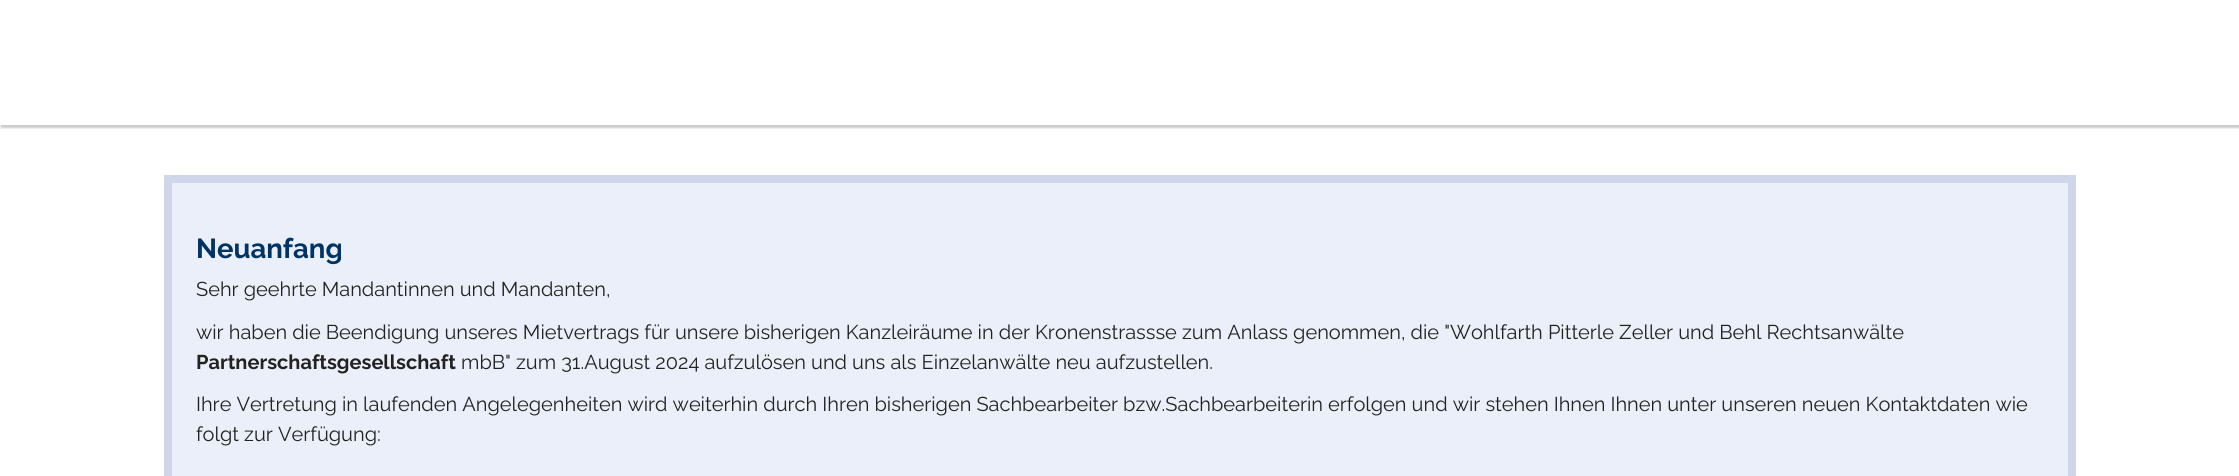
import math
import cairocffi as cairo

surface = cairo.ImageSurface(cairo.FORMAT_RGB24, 2239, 476)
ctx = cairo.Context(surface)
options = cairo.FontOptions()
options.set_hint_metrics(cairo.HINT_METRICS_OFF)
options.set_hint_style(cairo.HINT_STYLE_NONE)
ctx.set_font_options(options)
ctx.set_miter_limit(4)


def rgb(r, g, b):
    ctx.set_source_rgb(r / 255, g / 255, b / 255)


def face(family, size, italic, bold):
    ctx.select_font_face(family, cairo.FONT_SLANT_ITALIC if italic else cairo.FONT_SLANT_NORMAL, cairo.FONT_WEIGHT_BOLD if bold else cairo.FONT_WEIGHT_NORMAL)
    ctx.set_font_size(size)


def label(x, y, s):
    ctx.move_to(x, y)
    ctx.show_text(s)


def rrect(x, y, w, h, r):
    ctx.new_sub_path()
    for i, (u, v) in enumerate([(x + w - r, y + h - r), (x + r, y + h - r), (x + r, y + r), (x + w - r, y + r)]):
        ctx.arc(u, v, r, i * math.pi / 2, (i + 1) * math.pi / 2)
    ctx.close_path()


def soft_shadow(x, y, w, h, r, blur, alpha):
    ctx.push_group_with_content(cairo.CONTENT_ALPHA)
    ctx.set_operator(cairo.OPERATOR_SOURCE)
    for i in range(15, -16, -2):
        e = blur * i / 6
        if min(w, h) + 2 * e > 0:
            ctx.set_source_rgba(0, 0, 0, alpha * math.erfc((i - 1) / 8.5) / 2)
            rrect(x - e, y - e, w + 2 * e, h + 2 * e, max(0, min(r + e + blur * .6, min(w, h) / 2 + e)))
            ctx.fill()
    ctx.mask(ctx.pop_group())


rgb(255, 255, 255)
ctx.paint()
ctx.save()
ctx.rectangle(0, 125, 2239, 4)
ctx.clip()
rgb(26, 26, 26)
soft_shadow(1, 3, 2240, 125, 0, 1, 0.23)
ctx.restore()
rgb(235, 239, 249)
ctx.rectangle(168, 179, 1904, 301)
ctx.fill_preserve()
rgb(207, 214, 233)
ctx.set_line_width(8)
ctx.stroke()
face('Raleway', 27.5, 0, 1)
rgb(0, 51, 102)
label(196, 258, 'Neuanfang')
face('Raleway', 20, 0, 0)
rgb(34, 34, 34)
label(196, 296, 'Sehr geehrte Mandantinnen und Mandanten,')
label(196, 339, 'wir haben die Beendigung unseres Mietvertrags für unsere bisherigen Kanzleiräume in der Kronenstrassse zum Anlass genommen, die "Wohlfarth Pitterle Zeller und Behl Rechtsanwälte')
face('Raleway', 20, 0, 1)
label(196, 369, 'Partnerschaftsgesellschaft')
face('Raleway', 20, 0, 0)
label(461, 369, 'mbB" zum 31.August 2024 aufzulösen und uns als Einzelanwälte neu aufzustellen.')
label(196, 411, 'Ihre Vertretung in laufenden Angelegenheiten wird weiterhin durch Ihren bisherigen Sachbearbeiter bzw.Sachbearbeiterin erfolgen und wir stehen Ihnen Ihnen unter unseren neuen Kontaktdaten wie')
label(196, 441, 'folgt zur Verfügung:')
surface.write_to_png('render.png')
